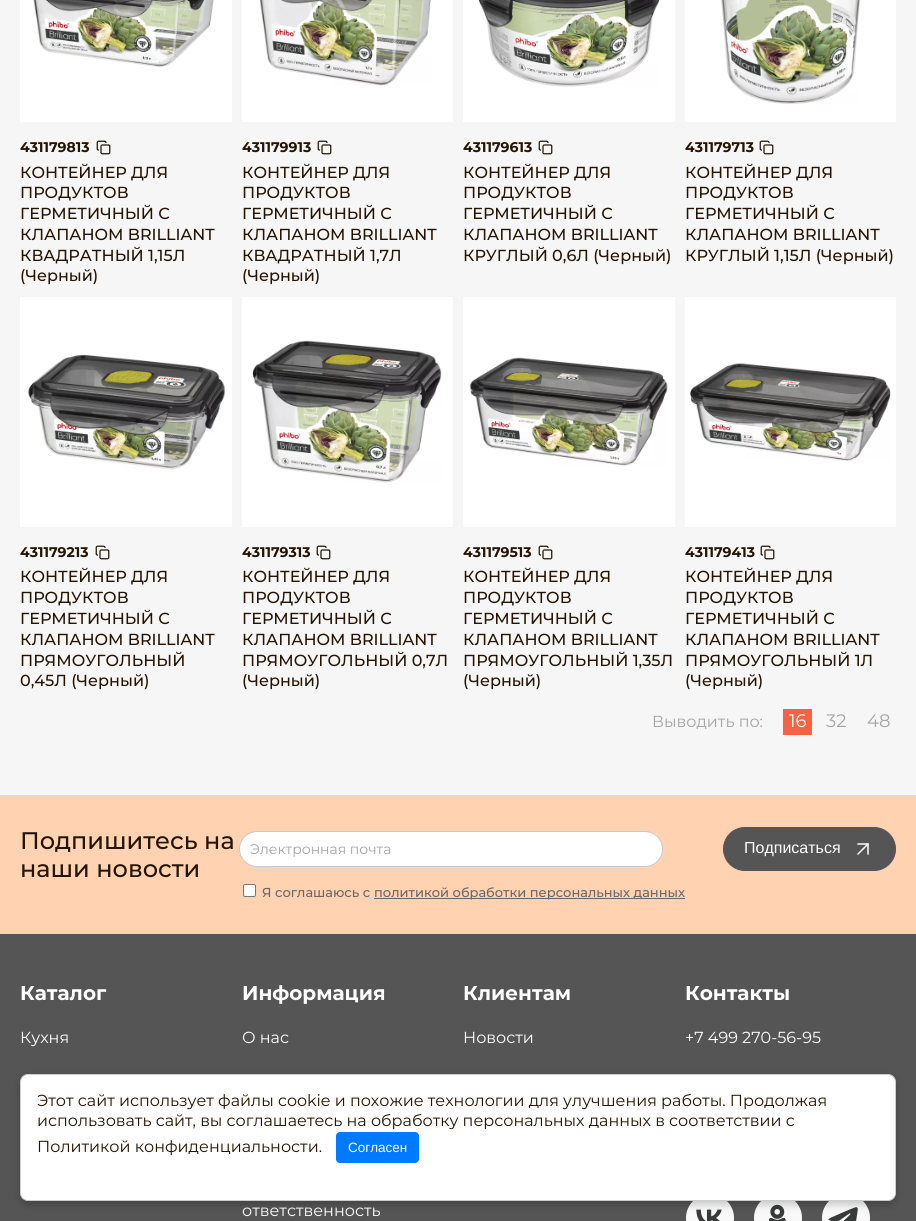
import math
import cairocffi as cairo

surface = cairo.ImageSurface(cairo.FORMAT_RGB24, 916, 1221)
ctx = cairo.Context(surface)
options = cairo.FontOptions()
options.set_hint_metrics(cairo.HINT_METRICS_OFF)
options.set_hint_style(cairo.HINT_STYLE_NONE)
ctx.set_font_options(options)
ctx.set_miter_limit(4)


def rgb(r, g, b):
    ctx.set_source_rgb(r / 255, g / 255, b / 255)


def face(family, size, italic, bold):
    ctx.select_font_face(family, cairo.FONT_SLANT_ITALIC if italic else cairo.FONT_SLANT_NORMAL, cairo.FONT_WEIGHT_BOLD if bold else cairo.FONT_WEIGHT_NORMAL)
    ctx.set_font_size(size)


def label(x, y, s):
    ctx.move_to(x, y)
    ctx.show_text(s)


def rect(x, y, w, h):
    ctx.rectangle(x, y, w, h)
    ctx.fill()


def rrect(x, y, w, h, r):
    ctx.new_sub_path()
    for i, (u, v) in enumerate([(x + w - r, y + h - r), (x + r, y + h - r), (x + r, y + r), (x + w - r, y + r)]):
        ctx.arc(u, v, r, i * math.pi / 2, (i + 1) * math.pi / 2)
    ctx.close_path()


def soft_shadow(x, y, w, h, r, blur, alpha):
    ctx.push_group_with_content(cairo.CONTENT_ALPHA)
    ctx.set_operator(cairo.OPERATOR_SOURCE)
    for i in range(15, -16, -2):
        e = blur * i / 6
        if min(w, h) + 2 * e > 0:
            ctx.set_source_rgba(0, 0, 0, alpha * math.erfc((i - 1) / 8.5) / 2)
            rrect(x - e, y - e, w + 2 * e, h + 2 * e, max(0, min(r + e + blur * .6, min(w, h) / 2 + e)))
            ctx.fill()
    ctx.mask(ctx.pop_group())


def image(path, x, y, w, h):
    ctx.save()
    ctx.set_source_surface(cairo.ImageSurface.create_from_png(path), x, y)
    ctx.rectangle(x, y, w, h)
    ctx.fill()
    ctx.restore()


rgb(246, 246, 246)
ctx.paint()
rgb(255, 255, 255)
rect(20, 0, 212, 122)
image('image0.png', 33, 0, 181, 67)
face('Montserrat', 14, 0, 1)
rgb(36, 20, 3)
label(20, 152, '431179813')
image('image1.png', 96, 140, 15, 15)
face('Montserrat Medium', 16, 0, 0)
label(20, 178, 'КОНТЕЙНЕР ДЛЯ')
label(20, 198, 'ПРОДУКТОВ')
label(20, 219, 'ГЕРМЕТИЧНЫЙ С')
label(20, 240, 'КЛАПАНОМ BRILLIANT')
label(20, 261, 'КВАДРАТНЫЙ 1,15Л')
label(20, 281, '(Черный)')
rgb(255, 255, 255)
rect(242, 0, 211, 122)
image('image2.png', 259, 0, 172, 86)
face('Montserrat', 14, 0, 1)
rgb(36, 20, 3)
label(242, 152, '431179913')
image('image1.png', 317, 140, 15, 15)
face('Montserrat Medium', 16, 0, 0)
label(242, 178, 'КОНТЕЙНЕР ДЛЯ')
label(242, 198, 'ПРОДУКТОВ')
label(242, 219, 'ГЕРМЕТИЧНЫЙ С')
label(242, 240, 'КЛАПАНОМ BRILLIANT')
label(242, 261, 'КВАДРАТНЫЙ 1,7Л')
label(242, 281, '(Черный)')
rgb(255, 255, 255)
rect(463, 0, 212, 122)
image('image3.png', 478, 0, 182, 87)
face('Montserrat', 14, 0, 1)
rgb(36, 20, 3)
label(463, 152, '431179613')
image('image1.png', 538, 140, 15, 15)
face('Montserrat Medium', 16, 0, 0)
label(463, 178, 'КОНТЕЙНЕР ДЛЯ')
label(463, 198, 'ПРОДУКТОВ')
label(463, 219, 'ГЕРМЕТИЧНЫЙ С')
label(463, 240, 'КЛАПАНОМ BRILLIANT')
label(463, 261, 'КРУГЛЫЙ 0,6Л (Черный)')
rgb(255, 255, 255)
rect(685, 0, 211, 122)
image('image4.png', 721, 0, 140, 104)
face('Montserrat', 14, 0, 1)
rgb(36, 20, 3)
label(685, 152, '431179713')
image('image1.png', 759, 140, 15, 15)
face('Montserrat Medium', 16, 0, 0)
label(685, 178, 'КОНТЕЙНЕР ДЛЯ')
label(685, 198, 'ПРОДУКТОВ')
label(685, 219, 'ГЕРМЕТИЧНЫЙ С')
label(685, 240, 'КЛАПАНОМ BRILLIANT')
label(685, 261, 'КРУГЛЫЙ 1,15Л (Черный)')
rgb(255, 255, 255)
rect(20, 297, 212, 230)
image('image5.png', 28, 354, 198, 116)
face('Montserrat', 14, 0, 1)
rgb(36, 20, 3)
label(20, 557, '431179213')
image('image1.png', 95, 545, 15, 15)
face('Montserrat Medium', 16, 0, 0)
label(20, 582, 'КОНТЕЙНЕР ДЛЯ')
label(20, 603, 'ПРОДУКТОВ')
label(20, 624, 'ГЕРМЕТИЧНЫЙ С')
label(20, 645, 'КЛАПАНОМ BRILLIANT')
label(20, 666, 'ПРЯМОУГОЛЬНЫЙ')
label(20, 686, '0,45Л (Черный)')
rgb(255, 255, 255)
rect(242, 297, 211, 230)
image('image6.png', 252, 340, 190, 143)
face('Montserrat', 14, 0, 1)
rgb(36, 20, 3)
label(242, 557, '431179313')
image('image1.png', 316, 545, 15, 15)
face('Montserrat Medium', 16, 0, 0)
label(242, 582, 'КОНТЕЙНЕР ДЛЯ')
label(242, 603, 'ПРОДУКТОВ')
label(242, 624, 'ГЕРМЕТИЧНЫЙ С')
label(242, 645, 'КЛАПАНОМ BRILLIANT')
label(242, 666, 'ПРЯМОУГОЛЬНЫЙ 0,7Л')
label(242, 686, '(Черный)')
rgb(255, 255, 255)
rect(463, 297, 212, 230)
image('image7.png', 469, 357, 199, 109)
face('Montserrat', 14, 0, 1)
rgb(36, 20, 3)
label(463, 557, '431179513')
image('image1.png', 538, 545, 15, 15)
face('Montserrat Medium', 16, 0, 0)
label(463, 582, 'КОНТЕЙНЕР ДЛЯ')
label(463, 603, 'ПРОДУКТОВ')
label(463, 624, 'ГЕРМЕТИЧНЫЙ С')
label(463, 645, 'КЛАПАНОМ BRILLIANT')
label(463, 666, 'ПРЯМОУГОЛЬНЫЙ 1,35Л')
label(463, 686, '(Черный)')
rgb(255, 255, 255)
rect(685, 297, 211, 230)
image('image8.png', 690, 363, 201, 98)
face('Montserrat', 14, 0, 1)
rgb(36, 20, 3)
label(685, 557, '431179413')
image('image1.png', 760, 545, 15, 15)
face('Montserrat Medium', 16, 0, 0)
label(685, 582, 'КОНТЕЙНЕР ДЛЯ')
label(685, 603, 'ПРОДУКТОВ')
label(685, 624, 'ГЕРМЕТИЧНЫЙ С')
label(685, 645, 'КЛАПАНОМ BRILLIANT')
label(685, 666, 'ПРЯМОУГОЛЬНЫЙ 1Л')
label(685, 686, '(Черный)')
face('Montserrat', 16, 0, 0)
rgb(166, 165, 166)
label(652, 727, 'Выводить по:')
rgb(244, 100, 67)
rect(783, 709, 29, 26)
face('Montserrat', 18, 0, 0)
rgb(255, 255, 255)
label(789, 727, '16')
rgb(166, 165, 166)
label(826, 727, '32')
label(867, 727, '48')
rgb(255, 210, 177)
rect(0, 795, 916, 139)
face('Montserrat Medium', 24, 0, 0)
rgb(36, 20, 3)
label(20, 849, 'Подпишитесь на')
label(20, 877, 'наши новости')
rgb(255, 255, 255)
rrect(239.5, 831.5, 423, 35, 17.5)
ctx.fill_preserve()
rgb(202, 202, 202)
ctx.set_line_width(1)
ctx.stroke()
face('Montserrat', 14, 0, 0)
rgb(166, 165, 166)
label(250, 854, 'Электронная почта')
rgb(85, 85, 85)
rrect(723.5, 827.5, 172, 43, 21.5)
ctx.fill_preserve()
ctx.stroke()
face('Liberation Sans', 16, 0, 0)
rgb(255, 255, 255)
label(744, 853, 'Подписаться')
image('image9.png', 857, 843, 12, 12)
rrect(243.5, 884.5, 12, 12, 1.5)
ctx.fill_preserve()
rgb(118, 118, 118)
ctx.stroke()
face('Montserrat Medium', 13, 0, 0)
rgb(107, 103, 102)
label(262, 897, 'Я соглашаюсь с')
rect(374, 898, 311, 1)
label(374, 897, 'политикой обработки персональных данных')
rgb(85, 85, 85)
rect(0, 934, 916, 287)
face('Montserrat', 20, 0, 1)
rgb(255, 255, 255)
label(20, 1000, 'Каталог')
face('Montserrat', 16, 0, 0)
label(20, 1043, 'Кухня')
face('Montserrat', 20, 0, 1)
label(242, 1000, 'Информация')
face('Montserrat', 16, 0, 0)
label(242, 1043, 'О нас')
label(242, 1216, 'ответственность')
face('Montserrat', 20, 0, 1)
label(463, 1000, 'Клиентам')
face('Montserrat', 16, 0, 0)
label(463, 1043, 'Новости')
face('Montserrat', 20, 0, 1)
label(685, 1000, 'Контакты')
face('Montserrat', 16, 0, 0)
label(685, 1043, '+7 499 270-56-95')
image('image10.png', 686, 1201, 48, 20)
image('image11.png', 754, 1201, 48, 20)
image('image12.png', 822, 1201, 48, 20)
rgb(0, 0, 0)
soft_shadow(20, 1078, 876, 127, 8, 4, 0.2)
rgb(255, 255, 255)
rrect(20.5, 1074.5, 875, 126, 7.5)
ctx.fill_preserve()
rgb(204, 204, 204)
ctx.stroke()
rgb(36, 20, 3)
label(37, 1106, 'Этот сайт использует файлы cookie и похожие технологии для улучшения работы. Продолжая')
label(37, 1126, 'использовать сайт, вы соглашаетесь на обработку персональных данных в соответствии с')
label(37, 1152, 'Политикой конфиденциальности.')
rgb(0, 123, 255)
rrect(336, 1132, 83, 31, 4)
ctx.fill()
face('Liberation Sans', 13.5, 0, 0)
rgb(255, 255, 255)
label(348, 1152, 'Согласен')
surface.write_to_png('render.png')
